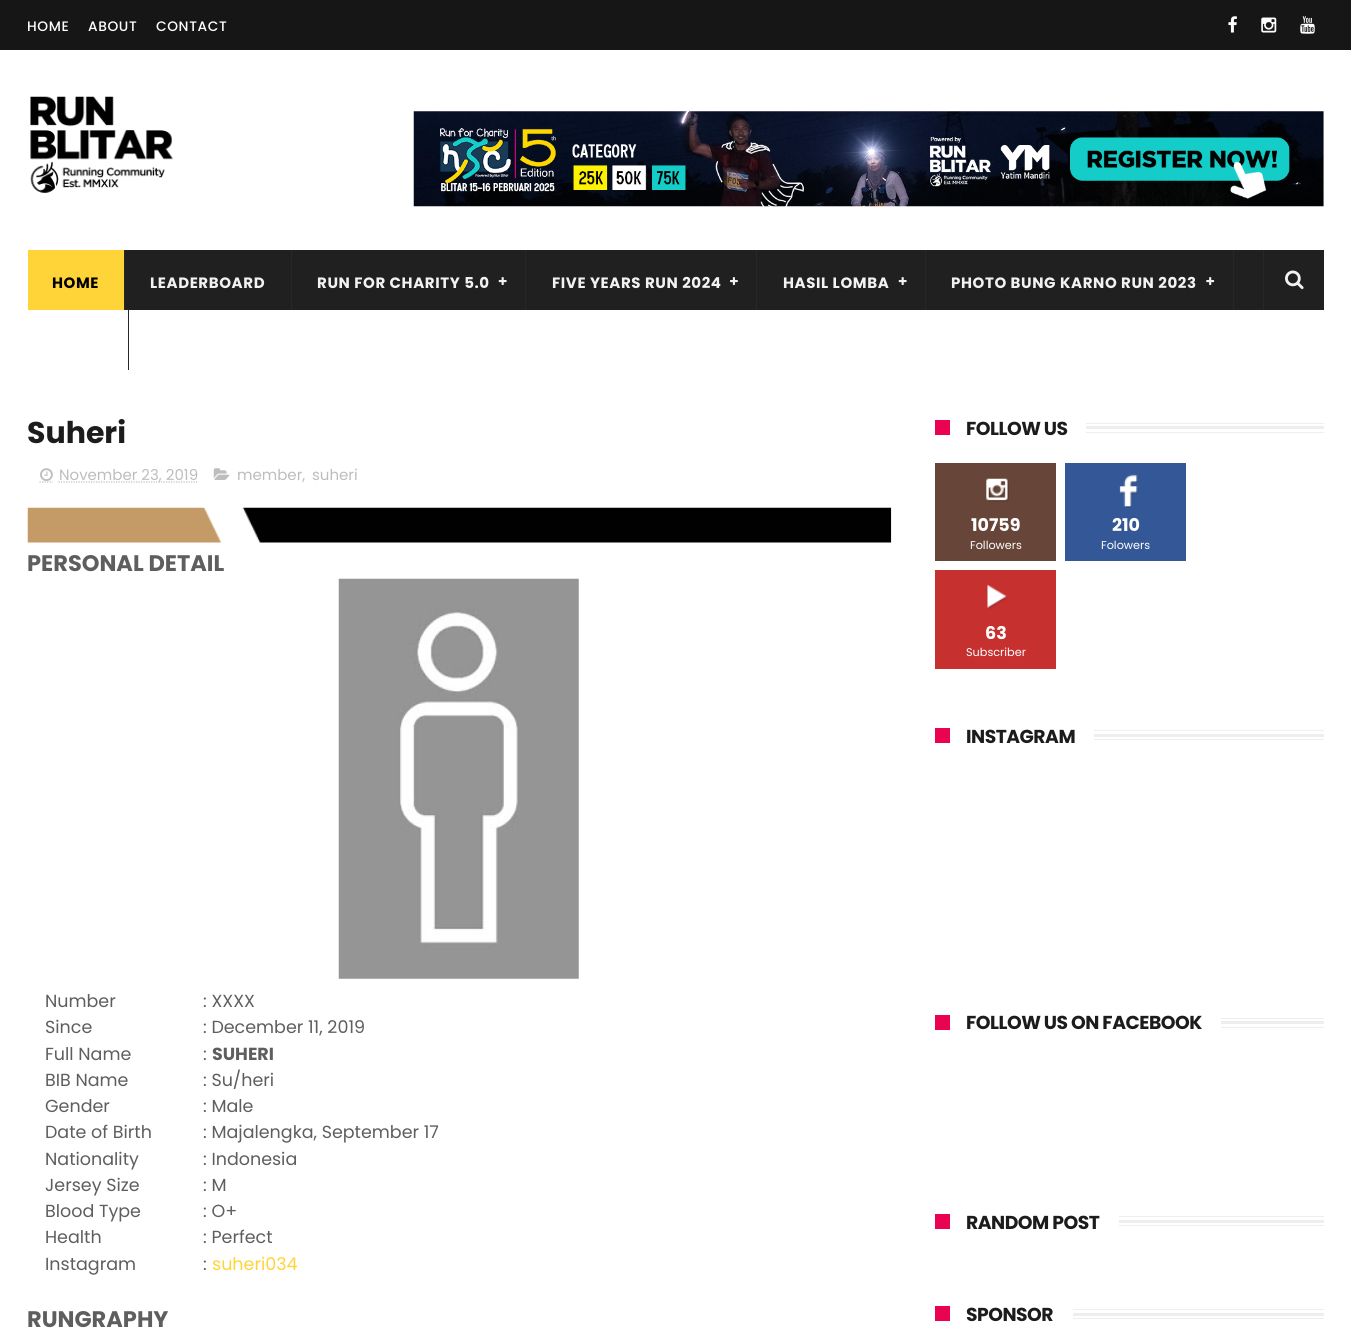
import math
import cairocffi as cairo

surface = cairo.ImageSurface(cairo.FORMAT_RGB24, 1351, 1334)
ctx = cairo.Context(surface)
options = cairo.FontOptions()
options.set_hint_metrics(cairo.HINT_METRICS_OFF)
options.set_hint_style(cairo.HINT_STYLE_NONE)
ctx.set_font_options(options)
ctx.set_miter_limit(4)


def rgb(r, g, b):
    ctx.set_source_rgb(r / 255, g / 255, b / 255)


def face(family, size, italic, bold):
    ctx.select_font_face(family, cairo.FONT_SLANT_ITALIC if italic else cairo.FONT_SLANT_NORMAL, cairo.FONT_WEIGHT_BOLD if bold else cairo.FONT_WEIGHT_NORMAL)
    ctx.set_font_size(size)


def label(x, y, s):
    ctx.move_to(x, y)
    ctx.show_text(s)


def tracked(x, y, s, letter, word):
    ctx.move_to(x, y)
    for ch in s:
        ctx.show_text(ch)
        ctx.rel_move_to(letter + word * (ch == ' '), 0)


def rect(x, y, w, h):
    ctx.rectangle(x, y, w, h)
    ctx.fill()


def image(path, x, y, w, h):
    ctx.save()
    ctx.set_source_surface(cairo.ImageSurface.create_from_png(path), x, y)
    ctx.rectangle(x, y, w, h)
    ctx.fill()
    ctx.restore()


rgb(255, 255, 255)
ctx.paint()
rgb(23, 22, 22)
rect(0, 0, 1351, 50)
face('Poppins Medium', 13.75, 0, 0)
rgb(255, 255, 255)
tracked(27, 31, 'HOME', 0.6, 0)
tracked(88, 31, 'ABOUT', 0.6, 0)
tracked(156, 31, 'CONTACT', 0.6, 0)
image('image0.png', 1228, 16, 9, 17)
image('image1.png', 1261, 17, 16, 16)
image('image2.png', 1300, 16, 15, 18)
image('image3.png', 30, 96, 143, 97)
image('image4.png', 413, 111, 911, 96)
rgb(32, 32, 32)
rect(125, 250, 1199, 60)
rgb(255, 212, 57)
rect(28, 250, 96, 60)
rgb(39, 39, 39)
rect(124, 250, 1, 60)
face('Poppins', 15, 0, 1)
rgb(0, 0, 0)
tracked(52, 288, 'HOME', 0.6, 0)
rgb(39, 39, 39)
rect(291, 250, 1, 60)
rgb(242, 242, 242)
tracked(150, 288, 'LEADERBOARD', 0.6, 0)
rgb(39, 39, 39)
rect(525, 250, 1, 60)
rgb(242, 242, 242)
tracked(317, 288, 'RUN FOR CHARITY 5.0', 0.6, 0)
image('image5.png', 498, 277, 9, 8)
rgb(39, 39, 39)
rect(756, 250, 1, 60)
rgb(242, 242, 242)
tracked(552, 288, 'FIVE YEARS RUN 2024', 0.6, 0)
image('image6.png', 730, 277, 8, 8)
rgb(39, 39, 39)
rect(925, 250, 1, 60)
rgb(242, 242, 242)
tracked(783, 288, 'HASIL LOMBA', 0.6, 0)
image('image5.png', 898, 277, 9, 8)
rgb(39, 39, 39)
rect(1233, 250, 1, 60)
rgb(242, 242, 242)
tracked(951, 288, 'PHOTO BUNG KARNO RUN 2023', 0.6, 0)
image('image7.png', 1206, 277, 9, 8)
rgb(39, 39, 39)
rect(128, 310, 1, 60)
rect(1263, 250, 1, 60)
image('image8.png', 1285, 270, 19, 20)
face('Poppins', 30, 0, 1)
rgb(28, 28, 28)
label(27, 443, 'Suheri')
image('image9.png', 40, 468, 13, 13)
ctx.new_path()
ctx.move_to(58.5, 482)
ctx.line_to(197.5, 482)
rgb(189, 189, 189)
ctx.set_line_width(1.2)
ctx.set_dash([1.25, 1.25])
ctx.stroke()
face('Poppins', 15, 0, 0)
label(59, 480, 'November 23, 2019')
ctx.new_path()
ctx.move_to(39.5, 482)
ctx.line_to(52.5, 482)
ctx.stroke()
image('image10.png', 213, 468, 17, 12)
label(237, 480, 'member,')
label(312, 480, 'suheri')
image('image11.png', 27, 507, 865, 36)
face('Poppins', 22.5, 0, 1)
rgb(94, 94, 94)
label(27, 571, 'PERSONAL DETAIL')
image('image12.png', 338, 578, 241, 401)
face('Poppins', 17.5, 0, 0)
label(45, 1007, 'Number')
label(45, 1033, 'Since')
label(45, 1060, 'Full Name')
label(45, 1086, 'BIB Name')
label(45, 1112, 'Gender')
label(45, 1138, 'Date of Birth')
label(45, 1165, 'Nationality')
label(45, 1191, 'Jersey Size')
label(45, 1217, 'Blood Type')
label(45, 1243, 'Health')
label(45, 1270, 'Instagram')
label(203, 1007, ': XXXX')
label(203, 1033, ': December 11, 2019')
label(203, 1060, ':')
face('Poppins', 17.5, 0, 1)
label(212, 1060, 'SUHERI')
face('Poppins', 17.5, 0, 0)
label(203, 1086, ': Su/heri')
label(203, 1112, ': Male')
label(203, 1138, ': Majalengka, September 17')
label(203, 1165, ': Indonesia')
label(203, 1191, ': M')
label(203, 1217, ': O+')
label(203, 1243, ': Perfect')
label(203, 1270, ':')
rgb(255, 212, 57)
label(212, 1270, 'suheri034')
face('Poppins', 22.5, 0, 1)
rgb(94, 94, 94)
label(27, 1327, 'RUNGRAPHY')
ctx.save()
ctx.rectangle(935, 408, 389, 270)
ctx.clip()
ctx.rectangle(935.5, 423.5, 398, 9)
rgb(238, 238, 238)
ctx.set_line_width(1)
ctx.set_dash([])
ctx.stroke()
ctx.restore()
rgb(255, 255, 255)
rect(935, 423, 151, 10)
rgb(234, 2, 83)
rect(935, 420, 15, 15)
face('Poppins', 18.75, 0, 1)
rgb(28, 28, 28)
tracked(966, 435, 'FOLLOW US', -0.5, 0)
rgb(238, 238, 238)
rect(1086, 426, 238, 3)
rgb(103, 69, 56)
rect(935, 463, 121, 98)
image('image13.png', 986, 478, 23, 24)
face('Poppins', 17.5, 0, 1)
rgb(255, 255, 255)
label(971, 531, '10759')
face('Poppins', 11.25, 0, 0)
label(970, 549, 'Followers')
rgb(52, 88, 151)
rect(1065, 463, 121, 98)
image('image14.png', 1119, 474, 20, 34)
face('Poppins', 17.5, 0, 1)
rgb(255, 255, 255)
label(1112, 531, '210')
face('Poppins', 11.25, 0, 0)
label(1101, 549, 'Folowers')
rgb(198, 48, 47)
rect(935, 570, 121, 99)
image('image15.png', 987, 584, 21, 25)
face('Poppins', 17.5, 0, 1)
rgb(255, 255, 255)
label(985, 639, '63')
face('Poppins', 11.25, 0, 0)
label(966, 656, 'Subscriber')
ctx.save()
ctx.rectangle(935, 715, 389, 250)
ctx.clip()
ctx.rectangle(935.5, 730.5, 398, 9)
rgb(238, 238, 238)
ctx.set_line_width(1)
ctx.set_dash([])
ctx.stroke()
ctx.restore()
rect(935, 730, 159, 10)
rgb(234, 2, 83)
rect(935, 728, 15, 15)
face('Poppins', 18.75, 0, 1)
rgb(28, 28, 28)
tracked(966, 743, 'INSTAGRAM', -0.5, 0)
rgb(238, 238, 238)
rect(1094, 734, 230, 3)
ctx.save()
ctx.rectangle(935, 1003, 389, 161)
ctx.clip()
ctx.rectangle(935.5, 1018.5, 398, 9)
ctx.set_line_width(1)
ctx.set_dash([])
ctx.stroke()
ctx.restore()
rgb(255, 255, 255)
rect(935, 1018, 286, 10)
rgb(234, 2, 83)
rect(935, 1015, 15, 15)
rgb(28, 28, 28)
tracked(966, 1029, 'FOLLOW US ON FACEBOOK', -0.5, 0)
rgb(238, 238, 238)
rect(1221, 1021, 103, 3)
ctx.save()
ctx.rectangle(935, 1201, 389, 55)
ctx.clip()
ctx.rectangle(935.5, 1216.5, 398, 9)
ctx.set_line_width(1)
ctx.set_dash([])
ctx.stroke()
ctx.restore()
rgb(255, 255, 255)
rect(935, 1216, 184, 10)
rgb(234, 2, 83)
rect(935, 1214, 15, 15)
rgb(28, 28, 28)
tracked(966, 1229, 'RANDOM POST', -0.5, 0)
rgb(238, 238, 238)
rect(1119, 1220, 205, 3)
ctx.save()
ctx.rectangle(935, 1294, 389, 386)
ctx.clip()
ctx.rectangle(935.5, 1309.5, 398, 9)
ctx.set_line_width(1)
ctx.set_dash([])
ctx.stroke()
ctx.restore()
rgb(255, 255, 255)
rect(935, 1309, 138, 10)
rgb(234, 2, 83)
rect(935, 1306, 15, 15)
rgb(28, 28, 28)
tracked(966, 1321, 'SPONSOR', -0.5, 0)
rgb(238, 238, 238)
rect(1073, 1313, 251, 3)
surface.write_to_png('render.png')
